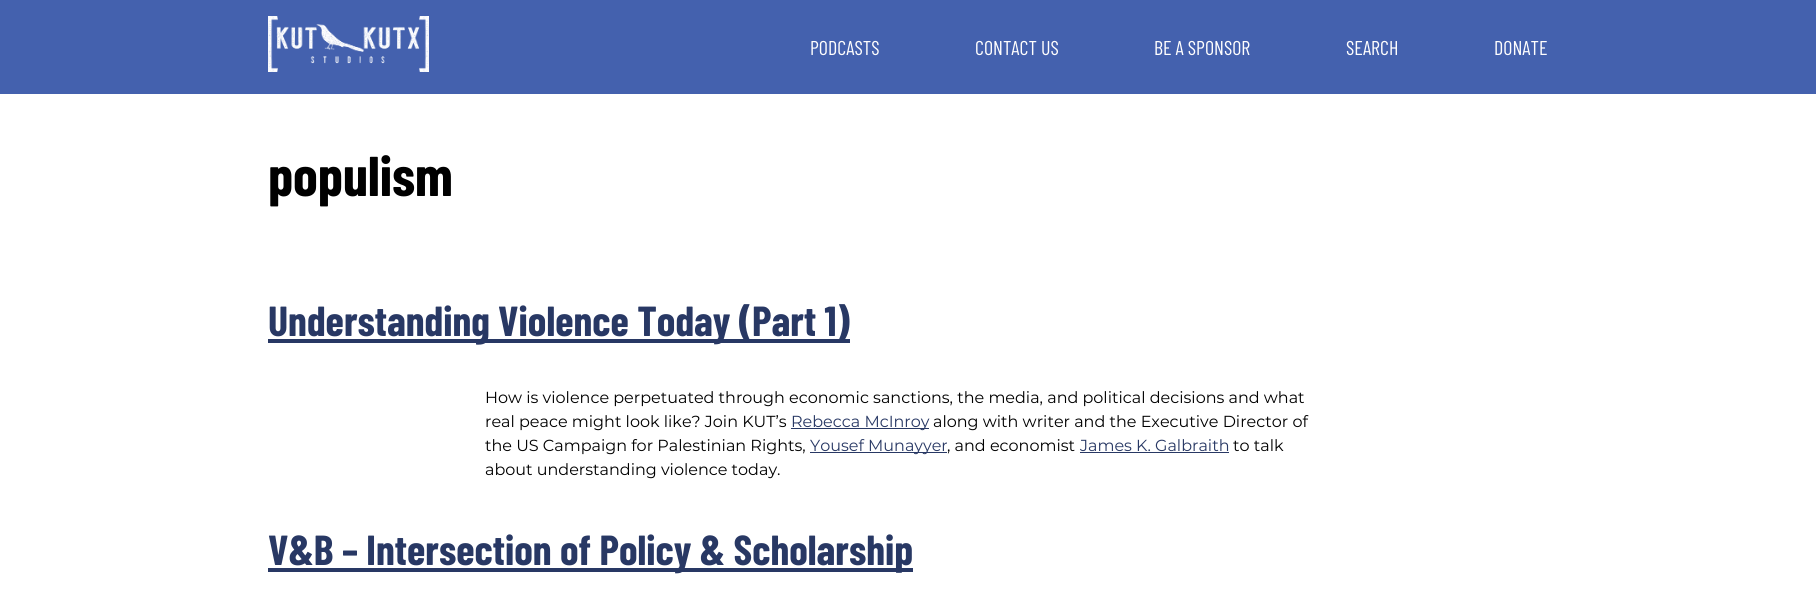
import math
import cairocffi as cairo

surface = cairo.ImageSurface(cairo.FORMAT_RGB24, 1816, 610)
ctx = cairo.Context(surface)
options = cairo.FontOptions()
options.set_hint_metrics(cairo.HINT_METRICS_OFF)
options.set_hint_style(cairo.HINT_STYLE_NONE)
ctx.set_font_options(options)
ctx.set_miter_limit(4)


def rgb(r, g, b):
    ctx.set_source_rgb(r / 255, g / 255, b / 255)


def face(family, size, italic, bold):
    ctx.select_font_face(family, cairo.FONT_SLANT_ITALIC if italic else cairo.FONT_SLANT_NORMAL, cairo.FONT_WEIGHT_BOLD if bold else cairo.FONT_WEIGHT_NORMAL)
    ctx.set_font_size(size)


def label(x, y, s):
    ctx.move_to(x, y)
    ctx.show_text(s)


def rect(x, y, w, h):
    ctx.rectangle(x, y, w, h)
    ctx.fill()


def image(path, x, y, w, h):
    ctx.save()
    ctx.set_source_surface(cairo.ImageSurface.create_from_png(path), x, y)
    ctx.rectangle(x, y, w, h)
    ctx.fill()
    ctx.restore()


rgb(255, 255, 255)
ctx.paint()
rgb(68, 97, 174)
rect(0, 0, 1816, 94)
image('image0.png', 268, 16, 161, 56)
face('Barlow Condensed', 20, 0, 0)
rgb(255, 254, 254)
label(810, 55, 'PODCASTS')
label(975, 55, 'CONTACT US')
label(1154, 55, 'BE A SPONSOR')
label(1346, 55, 'SEARCH')
label(1494, 55, 'DONATE')
face('Barlow Condensed', 56, 0, 1)
rgb(0, 0, 0)
label(268, 196, 'populism')
rgb(40, 56, 100)
rect(268, 339, 582, 4)
face('Barlow Condensed', 42, 0, 1)
label(268, 336, 'Understanding Violence Today (Part 1)')
face('Montserrat', 16, 0, 0)
rgb(0, 0, 0)
label(485, 403, 'How is violence perpetuated through economic sanctions, the media, and political decisions and what')
label(485, 427, 'real peace might look like? Join KUT’s')
rgb(40, 56, 100)
rect(791, 428, 138, 1)
label(791, 427, 'Rebecca McInroy')
rgb(0, 0, 0)
label(933, 427, 'along with writer and the Executive Director of')
label(485, 451, 'the US Campaign for Palestinian Rights,')
rgb(40, 56, 100)
rect(810, 452, 137, 1)
label(810, 451, 'Yousef Munayyer')
rgb(0, 0, 0)
label(947, 451, ', and economist')
rgb(40, 56, 100)
label(1080, 451, 'James K. Galbraith')
rect(1080, 452, 149, 1)
rgb(0, 0, 0)
label(1233, 451, 'to talk')
label(485, 475, 'about understanding violence today.')
rgb(40, 56, 100)
rect(268, 568, 645, 4)
face('Barlow Condensed', 42, 0, 1)
label(268, 565, 'V&B – Intersection of Policy & Scholarship')
surface.write_to_png('render.png')
